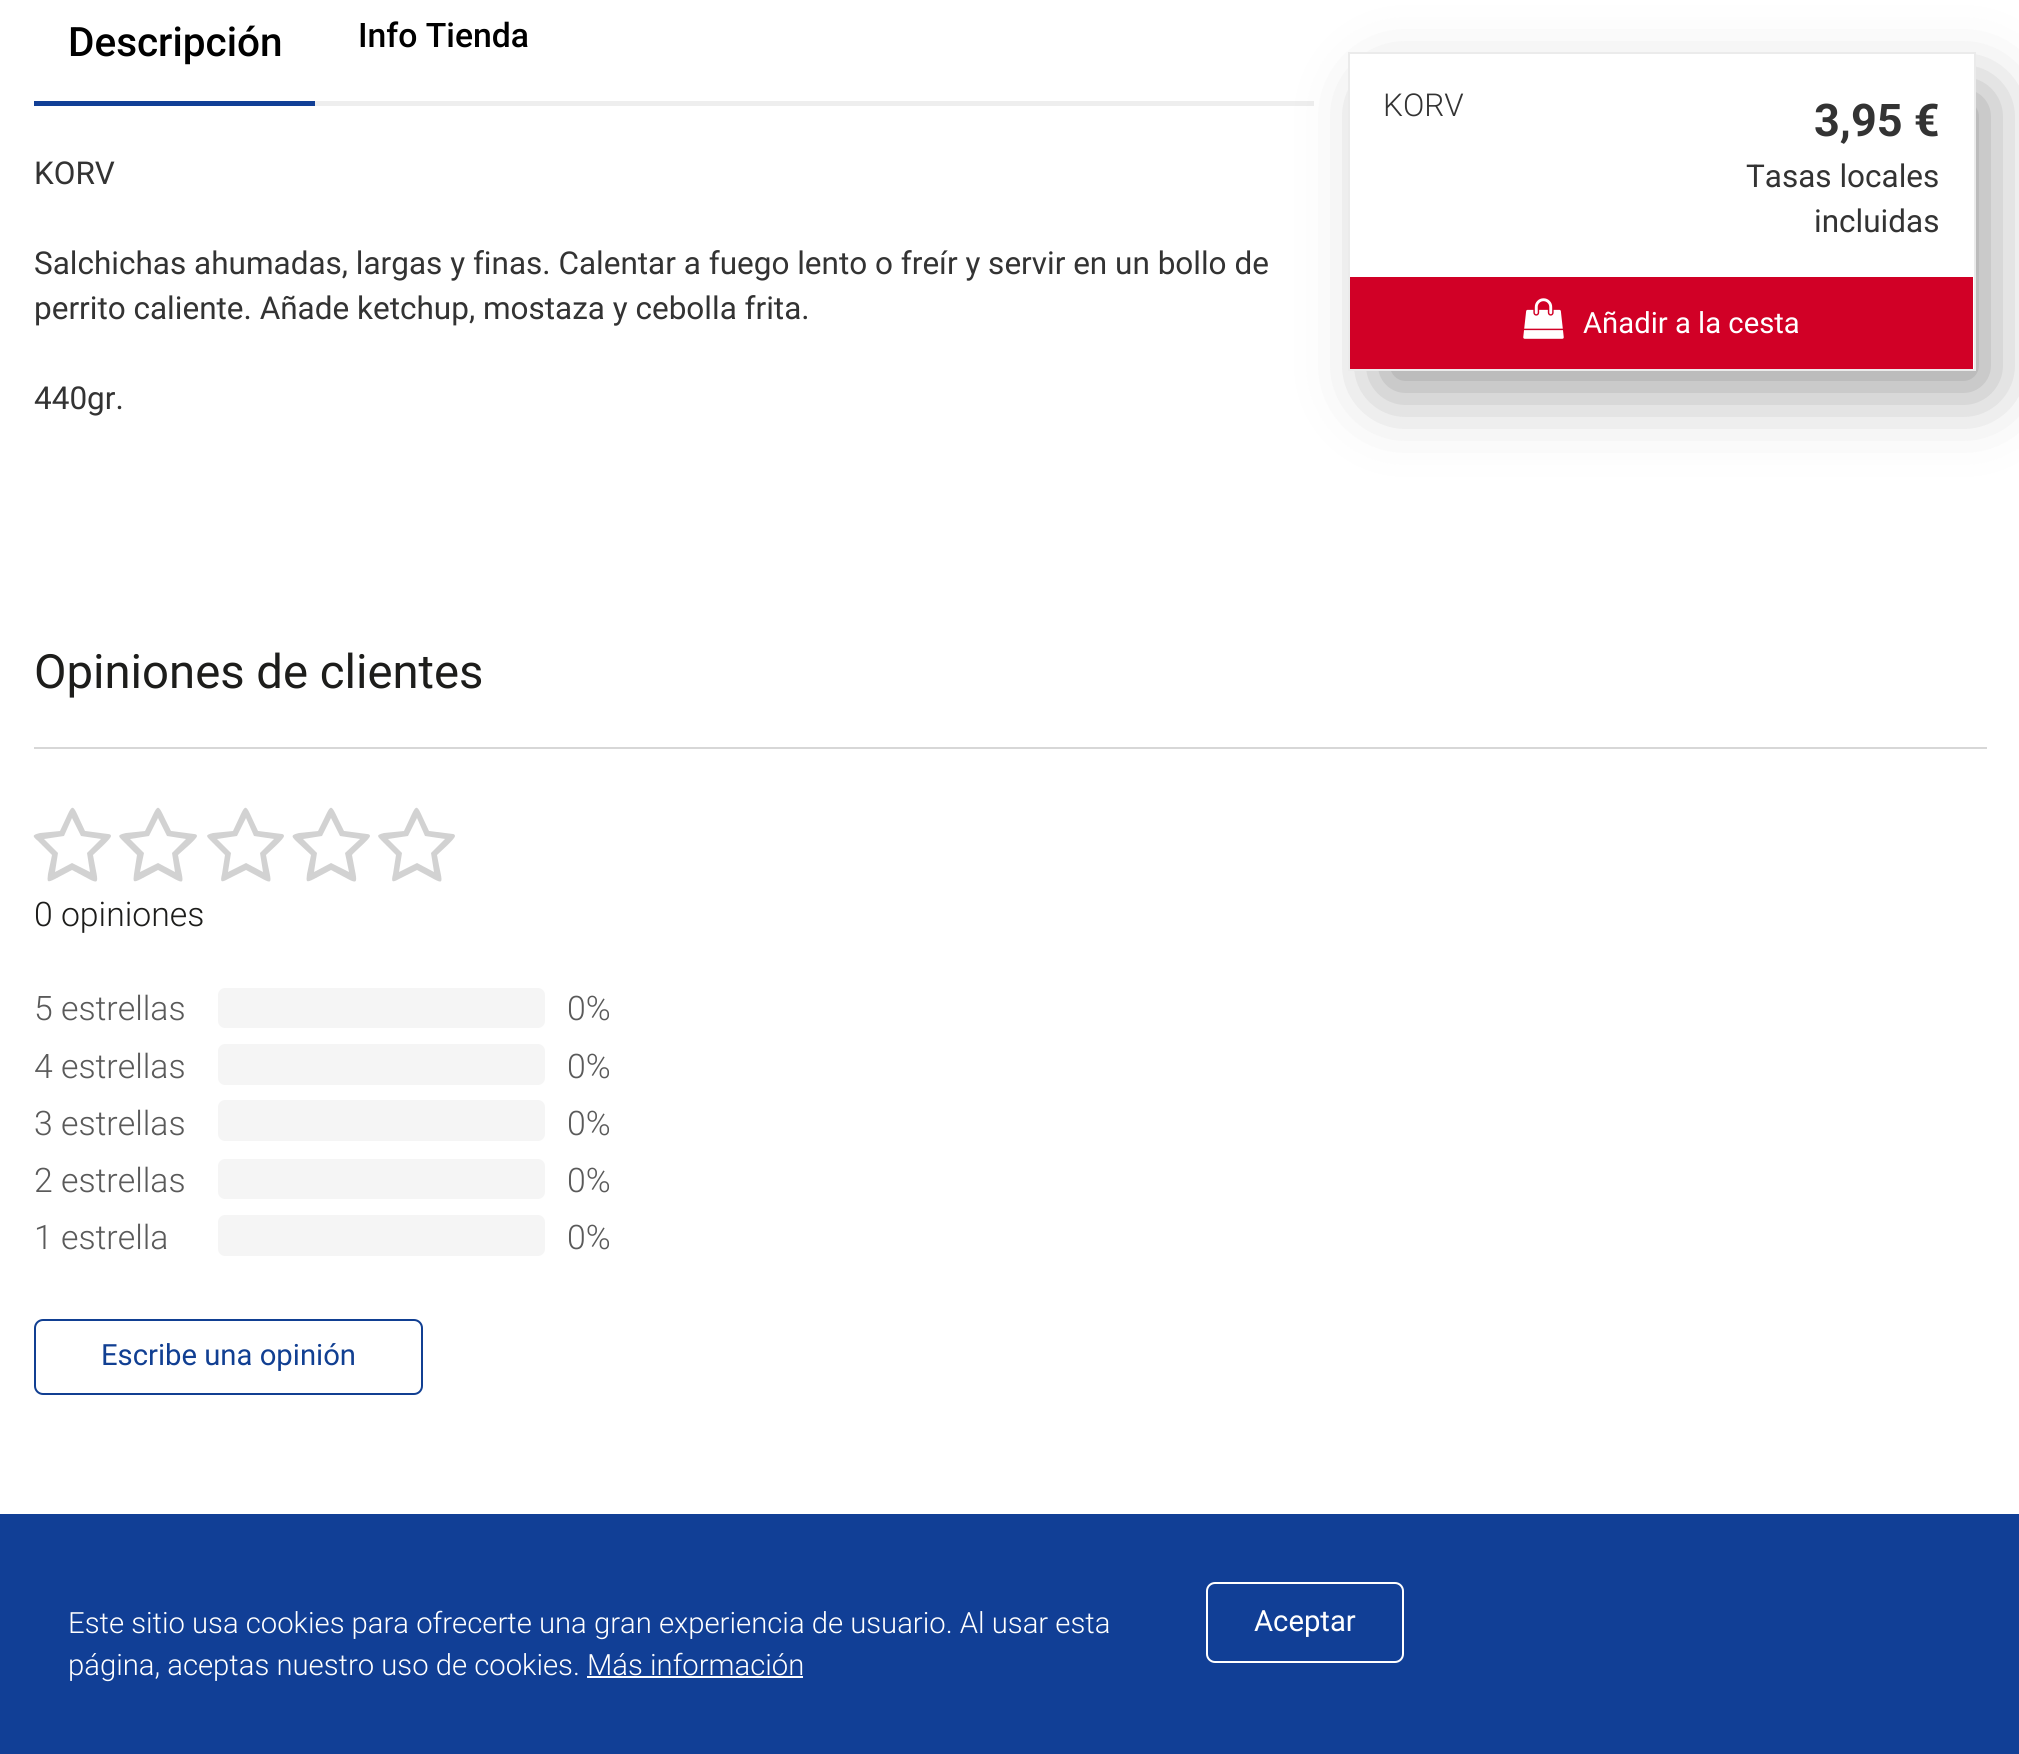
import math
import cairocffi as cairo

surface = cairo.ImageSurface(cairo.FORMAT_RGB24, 2019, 1754)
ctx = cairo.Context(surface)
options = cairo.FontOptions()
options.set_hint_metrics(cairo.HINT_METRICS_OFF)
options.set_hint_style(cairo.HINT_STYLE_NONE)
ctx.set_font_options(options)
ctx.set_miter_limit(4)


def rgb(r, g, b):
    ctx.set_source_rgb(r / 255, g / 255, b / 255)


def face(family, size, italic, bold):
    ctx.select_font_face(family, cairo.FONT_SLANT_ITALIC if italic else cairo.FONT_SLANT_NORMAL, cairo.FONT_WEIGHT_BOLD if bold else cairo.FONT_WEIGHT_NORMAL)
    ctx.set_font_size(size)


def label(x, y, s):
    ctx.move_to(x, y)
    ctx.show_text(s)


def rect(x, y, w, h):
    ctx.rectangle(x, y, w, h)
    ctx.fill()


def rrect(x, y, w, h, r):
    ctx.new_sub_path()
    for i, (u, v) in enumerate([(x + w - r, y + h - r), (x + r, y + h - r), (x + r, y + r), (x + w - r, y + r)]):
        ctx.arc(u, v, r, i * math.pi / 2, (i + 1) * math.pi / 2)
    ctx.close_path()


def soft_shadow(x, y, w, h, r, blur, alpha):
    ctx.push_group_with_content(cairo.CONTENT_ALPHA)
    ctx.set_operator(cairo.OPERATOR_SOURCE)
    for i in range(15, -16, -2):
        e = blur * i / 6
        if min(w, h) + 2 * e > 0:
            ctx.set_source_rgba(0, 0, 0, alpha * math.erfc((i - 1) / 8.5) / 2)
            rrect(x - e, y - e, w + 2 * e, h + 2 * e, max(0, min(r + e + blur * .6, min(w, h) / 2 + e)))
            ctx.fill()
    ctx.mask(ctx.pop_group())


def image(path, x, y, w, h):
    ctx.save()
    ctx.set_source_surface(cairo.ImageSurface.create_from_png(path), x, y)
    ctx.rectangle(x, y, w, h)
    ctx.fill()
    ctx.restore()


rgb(255, 255, 255)
ctx.paint()
rgb(238, 238, 238)
rect(315, 101, 999, 5)
face('Roboto Medium', 40.5, 0, 0)
rgb(0, 0, 0)
label(68, 56, 'Descripción')
rgb(17, 63, 150)
rect(34, 101, 281, 5)
face('Roboto Medium', 33.75, 0, 0)
rgb(0, 0, 0)
label(358, 47, 'Info Tienda')
face('Roboto', 31.5, 0, 0)
rgb(51, 51, 51)
label(34, 184, 'KORV')
label(34, 274, 'Salchichas ahumadas, largas y finas. Calentar a fuego lento o freír y servir en un bollo de')
label(34, 319, 'perrito caliente. Añade ketchup, mostaza y cebolla frita.')
label(34, 409, '440gr.')
rgb(0, 0, 0)
soft_shadow(1384, 95, 601, 292, 0, 36, 0.42)
rgb(255, 255, 255)
ctx.rectangle(1349, 53, 626, 317)
ctx.fill_preserve()
rgb(235, 235, 235)
ctx.stroke()
face('Roboto Light', 31.5, 0, 0)
rgb(51, 51, 51)
label(1383, 116, 'KORV')
face('Roboto', 45, 0, 1)
label(1814, 136, '3,95 €')
face('Roboto', 31.5, 0, 0)
label(1746, 187, 'Tasas locales')
label(1814, 232, 'incluidas')
rgb(209, 0, 38)
rect(1350, 277, 623, 92)
image('image0.png', 1523, 298, 41, 41)
face('Roboto', 29.25, 0, 0)
rgb(255, 255, 255)
label(1583, 333, 'Añadir a la cesta')
face('Roboto', 47.25, 0, 0)
rgb(29, 29, 27)
label(34, 688, 'Opiniones de clientes')
rgb(215, 215, 215)
rect(34, 747, 1953, 2)
rgb(210, 210, 210)
ctx.new_path()
ctx.move_to(87, 853)
ctx.line_to(101, 839)
ctx.line_to(81, 836)
ctx.line_to(72, 818)
ctx.line_to(64, 836)
ctx.line_to(44, 839)
ctx.line_to(58, 853)
ctx.line_to(55, 872)
ctx.line_to(72, 863)
ctx.line_to(90, 872)
ctx.close_path()
ctx.move_to(111, 836)
ctx.curve_to(111, 839, 96, 852, 93, 855)
ctx.curve_to(99, 889, 103, 886, 72, 870)
ctx.line_to(55, 879)
ctx.curve_to(47, 883, 47, 882, 48, 874)
ctx.line_to(52, 855)
ctx.line_to(38, 841)
ctx.curve_to(32, 836, 32, 835, 40, 833)
ctx.line_to(60, 831)
ctx.curve_to(75, 800, 70, 800, 85, 831)
ctx.line_to(108, 834)
ctx.curve_to(110, 834, 111, 835, 111, 836)
ctx.close_path()
ctx.fill()
ctx.new_path()
ctx.move_to(172, 853)
ctx.line_to(186, 839)
ctx.line_to(167, 836)
ctx.line_to(158, 818)
ctx.line_to(149, 836)
ctx.line_to(130, 839)
ctx.line_to(144, 853)
ctx.line_to(140, 872)
ctx.line_to(158, 863)
ctx.line_to(175, 872)
ctx.close_path()
ctx.move_to(197, 836)
ctx.curve_to(197, 839, 181, 852, 178, 855)
ctx.curve_to(184, 889, 189, 886, 158, 870)
ctx.line_to(141, 879)
ctx.curve_to(133, 883, 133, 882, 134, 874)
ctx.line_to(137, 855)
ctx.line_to(123, 841)
ctx.curve_to(118, 836, 117, 835, 126, 833)
ctx.line_to(145, 831)
ctx.curve_to(161, 800, 155, 800, 171, 831)
ctx.line_to(194, 834)
ctx.curve_to(196, 834, 197, 835, 197, 836)
ctx.close_path()
ctx.fill()
ctx.new_path()
ctx.move_to(260, 853)
ctx.line_to(274, 839)
ctx.line_to(254, 836)
ctx.line_to(246, 818)
ctx.line_to(237, 836)
ctx.line_to(217, 839)
ctx.line_to(231, 853)
ctx.line_to(228, 872)
ctx.line_to(246, 863)
ctx.line_to(263, 872)
ctx.close_path()
ctx.move_to(284, 836)
ctx.curve_to(284, 839, 269, 852, 266, 855)
ctx.curve_to(272, 889, 277, 886, 246, 870)
ctx.line_to(228, 879)
ctx.curve_to(221, 883, 220, 882, 222, 874)
ctx.line_to(225, 855)
ctx.line_to(211, 841)
ctx.curve_to(206, 836, 205, 835, 213, 833)
ctx.line_to(233, 831)
ctx.curve_to(248, 800, 243, 800, 258, 831)
ctx.line_to(282, 834)
ctx.curve_to(283, 834, 284, 835, 284, 836)
ctx.close_path()
ctx.fill()
ctx.new_path()
ctx.move_to(345, 853)
ctx.line_to(360, 839)
ctx.line_to(340, 836)
ctx.line_to(331, 818)
ctx.line_to(322, 836)
ctx.line_to(303, 839)
ctx.line_to(317, 853)
ctx.line_to(314, 872)
ctx.line_to(331, 863)
ctx.line_to(349, 872)
ctx.close_path()
ctx.move_to(370, 836)
ctx.curve_to(370, 839, 354, 852, 352, 855)
ctx.curve_to(358, 889, 362, 886, 331, 870)
ctx.line_to(314, 879)
ctx.curve_to(306, 883, 306, 882, 307, 874)
ctx.line_to(311, 855)
ctx.line_to(296, 841)
ctx.curve_to(291, 836, 291, 835, 299, 833)
ctx.line_to(318, 831)
ctx.curve_to(334, 800, 328, 800, 344, 831)
ctx.line_to(367, 834)
ctx.curve_to(369, 834, 370, 835, 370, 836)
ctx.close_path()
ctx.fill()
ctx.new_path()
ctx.move_to(431, 853)
ctx.line_to(445, 839)
ctx.line_to(425, 836)
ctx.line_to(417, 818)
ctx.line_to(408, 836)
ctx.line_to(388, 839)
ctx.line_to(402, 853)
ctx.line_to(399, 872)
ctx.line_to(417, 863)
ctx.line_to(434, 872)
ctx.close_path()
ctx.move_to(455, 836)
ctx.curve_to(455, 839, 440, 852, 437, 855)
ctx.curve_to(443, 889, 448, 886, 417, 870)
ctx.line_to(399, 879)
ctx.curve_to(392, 883, 391, 882, 393, 874)
ctx.line_to(396, 855)
ctx.line_to(382, 841)
ctx.curve_to(377, 836, 376, 835, 384, 833)
ctx.line_to(404, 831)
ctx.curve_to(419, 800, 414, 800, 429, 831)
ctx.line_to(453, 834)
ctx.curve_to(454, 834, 455, 835, 455, 836)
ctx.close_path()
ctx.fill()
face('Roboto Light', 33.75, 0, 0)
rgb(29, 29, 27)
label(34, 926, '0 opiniones')
rgb(90, 90, 90)
label(34, 1020, '5 estrellas')
rgb(245, 245, 245)
rrect(218, 988, 327, 40, 7)
ctx.fill()
rgb(90, 90, 90)
label(567, 1020, '0%')
label(34, 1078, '4 estrellas')
rgb(245, 245, 245)
rrect(218, 1044, 327, 41, 7)
ctx.fill()
rgb(90, 90, 90)
label(567, 1078, '0%')
label(34, 1135, '3 estrellas')
rgb(245, 245, 245)
rrect(218, 1100, 327, 41, 7)
ctx.fill()
rgb(90, 90, 90)
label(567, 1135, '0%')
label(34, 1192, '2 estrellas')
rgb(245, 245, 245)
rrect(218, 1159, 327, 40, 7)
ctx.fill()
rgb(90, 90, 90)
label(567, 1192, '0%')
label(34, 1249, '1 estrella')
rgb(245, 245, 245)
rrect(218, 1215, 327, 41, 7)
ctx.fill()
rgb(90, 90, 90)
label(567, 1249, '0%')
rrect(35, 1320, 387, 74, 8)
rgb(17, 63, 146)
ctx.stroke()
face('Roboto', 29.25, 0, 0)
label(101, 1365, 'Escribe una opinión')
rgb(17, 63, 150)
rect(0, 1514, 2019, 240)
face('Roboto Light', 29.25, 0, 0)
rgb(255, 255, 255)
label(68, 1633, 'Este sitio usa cookies para ofrecerte una gran experiencia de usuario. Al usar esta')
label(68, 1675, 'página, aceptas nuestro uso de cookies. Más información')
rect(587, 1676, 216, 2)
rrect(1207, 1583, 196, 79, 8)
ctx.stroke()
face('Roboto', 29.25, 0, 0)
label(1254, 1631, 'Aceptar')
surface.write_to_png('render.png')
